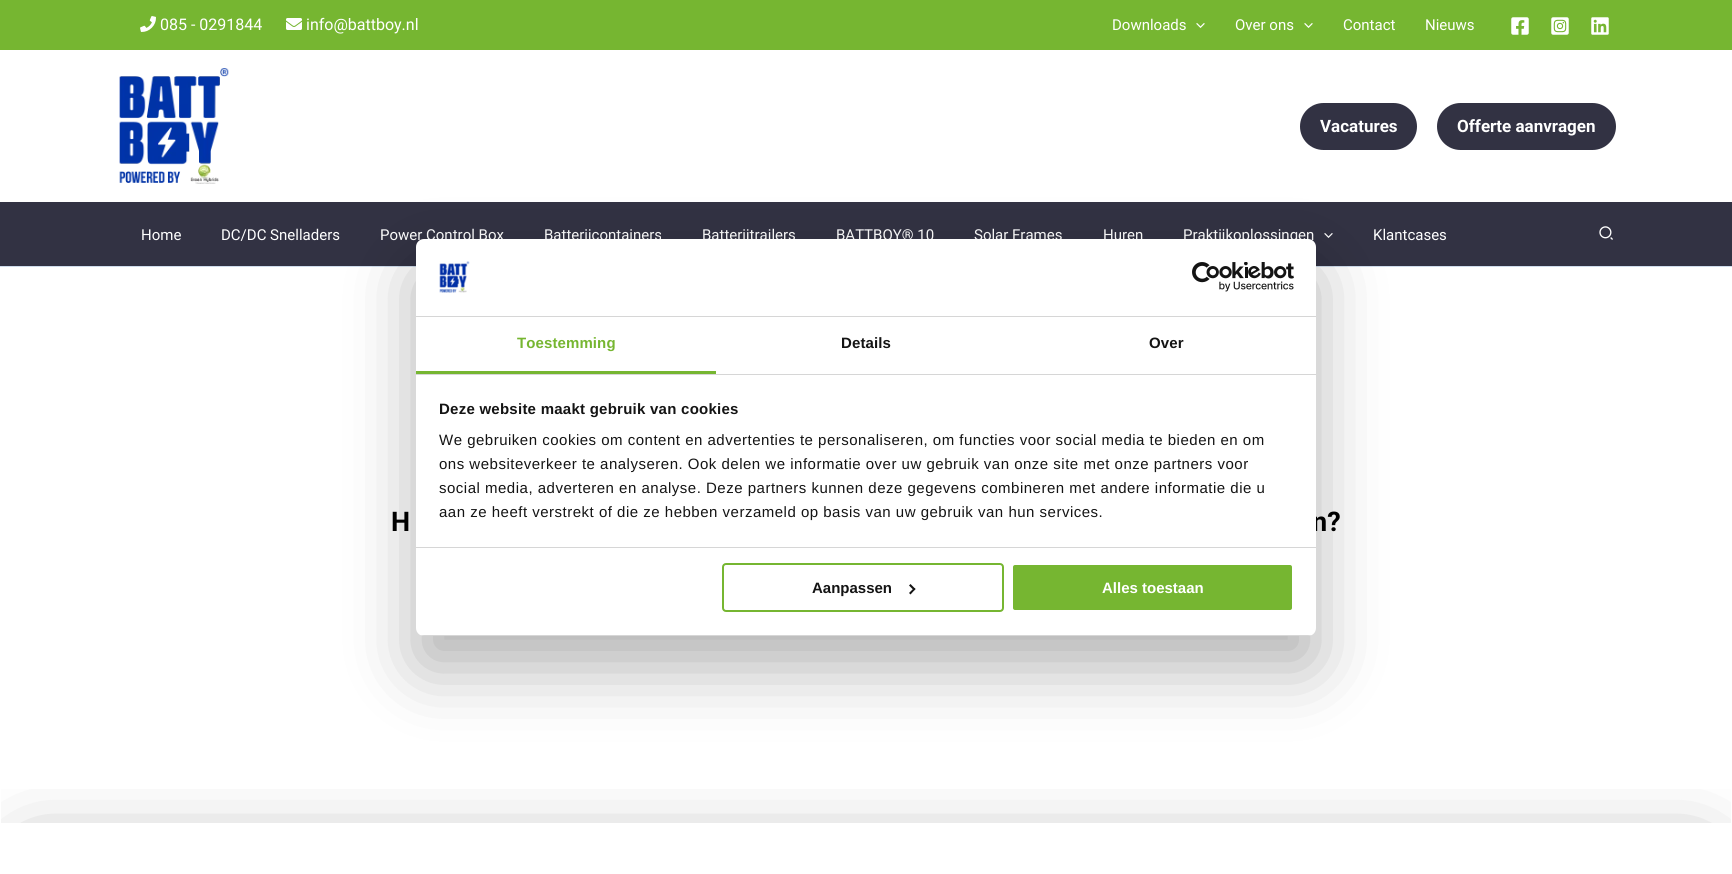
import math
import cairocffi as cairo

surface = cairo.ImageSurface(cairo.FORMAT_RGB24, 1732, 874)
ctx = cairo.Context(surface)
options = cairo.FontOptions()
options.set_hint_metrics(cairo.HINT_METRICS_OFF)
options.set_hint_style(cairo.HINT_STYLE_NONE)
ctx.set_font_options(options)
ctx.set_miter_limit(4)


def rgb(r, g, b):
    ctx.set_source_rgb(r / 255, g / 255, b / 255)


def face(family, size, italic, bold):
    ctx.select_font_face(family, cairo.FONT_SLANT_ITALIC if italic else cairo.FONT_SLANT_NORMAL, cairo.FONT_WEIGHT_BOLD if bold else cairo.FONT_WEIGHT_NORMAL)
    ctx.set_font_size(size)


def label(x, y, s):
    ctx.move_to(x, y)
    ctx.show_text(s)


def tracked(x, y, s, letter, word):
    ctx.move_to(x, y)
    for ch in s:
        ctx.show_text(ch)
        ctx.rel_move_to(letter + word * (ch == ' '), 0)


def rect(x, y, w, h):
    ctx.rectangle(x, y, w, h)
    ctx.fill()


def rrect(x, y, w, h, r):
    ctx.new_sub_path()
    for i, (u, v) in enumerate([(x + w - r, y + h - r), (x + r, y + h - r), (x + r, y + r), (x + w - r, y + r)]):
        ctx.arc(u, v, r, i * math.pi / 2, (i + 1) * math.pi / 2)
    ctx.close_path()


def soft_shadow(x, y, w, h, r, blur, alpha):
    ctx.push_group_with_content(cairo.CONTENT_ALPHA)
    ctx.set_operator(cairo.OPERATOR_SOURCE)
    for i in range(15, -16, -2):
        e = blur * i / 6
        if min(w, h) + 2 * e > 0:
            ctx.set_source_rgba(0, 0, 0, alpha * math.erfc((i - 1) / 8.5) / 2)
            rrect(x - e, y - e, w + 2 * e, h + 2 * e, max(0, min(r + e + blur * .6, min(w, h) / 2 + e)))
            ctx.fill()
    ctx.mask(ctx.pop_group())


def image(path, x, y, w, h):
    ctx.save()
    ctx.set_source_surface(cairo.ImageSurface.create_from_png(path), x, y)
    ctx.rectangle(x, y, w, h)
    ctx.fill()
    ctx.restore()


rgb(255, 255, 255)
ctx.paint()
rgb(118, 182, 49)
rect(0, 0, 1732, 50)
image('image0.png', 140, 16, 16, 16)
face('Roboto', 16, 0, 0)
rgb(255, 255, 255)
label(160, 30, '085 - 0291844')
image('image1.png', 286, 18, 16, 12)
label(306, 30, 'info@battboy.nl')
face('Roboto', 15, 0, 0)
label(1112, 30, 'Downloads')
image('image2.png', 1196, 23, 9, 5)
label(1235, 30, 'Over ons')
image('image2.png', 1304, 23, 9, 5)
label(1343, 30, 'Contact')
label(1425, 30, 'Nieuws')
image('image3.png', 1511, 17, 18, 18)
image('image4.png', 1551, 17, 18, 18)
image('image5.png', 1591, 17, 18, 18)
image('image6.png', 119, 68, 110, 116)
rgb(50, 50, 67)
rrect(1300, 103, 117, 47, 23.5)
ctx.fill()
face('Roboto', 17, 0, 1)
rgb(255, 255, 255)
label(1320, 132, 'Vacatures')
rgb(50, 50, 67)
rrect(1437, 103, 179, 47, 23.5)
ctx.fill()
rgb(255, 255, 255)
label(1457, 132, 'Offerte aanvragen')
rgb(50, 50, 67)
rect(0, 202, 1732, 64)
rgb(207, 220, 236)
rect(0, 266, 1732, 1)
face('Roboto', 15, 0, 0)
rgb(255, 255, 255)
label(141, 240, 'Home')
label(221, 240, 'DC/DC Snelladers')
label(380, 240, 'Power Control Box')
label(544, 240, 'Batterijcontainers')
label(702, 240, 'Batterijtrailers')
label(836, 240, 'BATTBOY® 10')
label(974, 240, 'Solar Frames')
label(1103, 240, 'Huren')
label(1183, 240, 'Praktijkoplossingen')
image('image7.png', 1324, 233, 9, 5)
label(1373, 240, 'Klantcases')
image('image8.png', 1599, 226, 14, 14)
face('Roboto', 27, 0, 1)
rgb(0, 0, 0)
label(391, 531, 'H')
label(1312, 531, 'n?')
ctx.save()
ctx.rectangle(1, 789, 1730, 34)
ctx.clip()
rgb(0, 0, 0)
soft_shadow(31, 862, 1670, 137, 0, 41.5, 0.5)
ctx.restore()
rgb(0, 0, 0)
soft_shadow(416, 271, 900, 397, 8, 34, 0.3)
rgb(255, 255, 255)
rrect(416, 239, 900, 397, 8)
ctx.fill()
rgb(214, 214, 214)
rect(416, 316, 900, 1)
image('image9.png', 439, 261, 31, 32)
image('image10.png', 1192, 262, 102, 30)
rect(416, 374, 900, 1)
rgb(118, 182, 49)
rect(416, 371, 300, 3)
face('Liberation Sans', 15, 0, 1)
tracked(517, 348, 'Toestemming', 0.1, 0)
rgb(20, 20, 20)
tracked(841, 348, 'Details', 0.1, 0)
tracked(1149, 348, 'Over', 0.1, 0)
rgb(214, 214, 214)
rect(416, 547, 900, 1)
rgb(20, 20, 20)
tracked(439, 414, 'Deze website maakt gebruik van cookies', 0.25, 0)
face('Liberation Sans', 15, 0, 0)
tracked(439, 445, 'We gebruiken cookies om content en advertenties te personaliseren, om functies voor social media te bieden en om', 0.5, 0)
tracked(439, 469, 'ons websiteverkeer te analyseren. Ook delen we informatie over uw gebruik van onze site met onze partners voor', 0.5, 0)
tracked(439, 493, 'social media, adverteren en analyse. Deze partners kunnen deze gegevens combineren met andere informatie die u', 0.5, 0)
tracked(439, 517, 'aan ze heeft verstrekt of die ze hebben verzameld op basis van uw gebruik van hun services.', 0.5, 0)
ctx.save()
rrect(416, 239, 900, 397, 8)
ctx.clip()
rgb(214, 214, 214)
rect(416, 635, 900, 1)
ctx.restore()
rrect(723, 564, 280, 47, 3)
rgb(118, 182, 49)
ctx.stroke()
face('Liberation Sans', 15, 0, 1)
rgb(20, 20, 20)
label(812, 593, 'Aanpassen')
ctx.new_path()
ctx.move_to(910.5, 584)
ctx.line_to(915.5, 589)
ctx.line_to(914, 590.5)
ctx.line_to(909, 585.5)
ctx.close_path()
ctx.fill()
ctx.new_path()
ctx.move_to(914, 588)
ctx.line_to(915.5, 589)
ctx.line_to(910.5, 594.5)
ctx.line_to(909, 593)
ctx.close_path()
ctx.fill()
rgb(118, 182, 49)
rrect(1012, 564, 281, 47, 3)
ctx.fill_preserve()
rgb(255, 255, 255)
ctx.stroke()
label(1102, 593, 'Alles toestaan')
surface.write_to_png('render.png')
